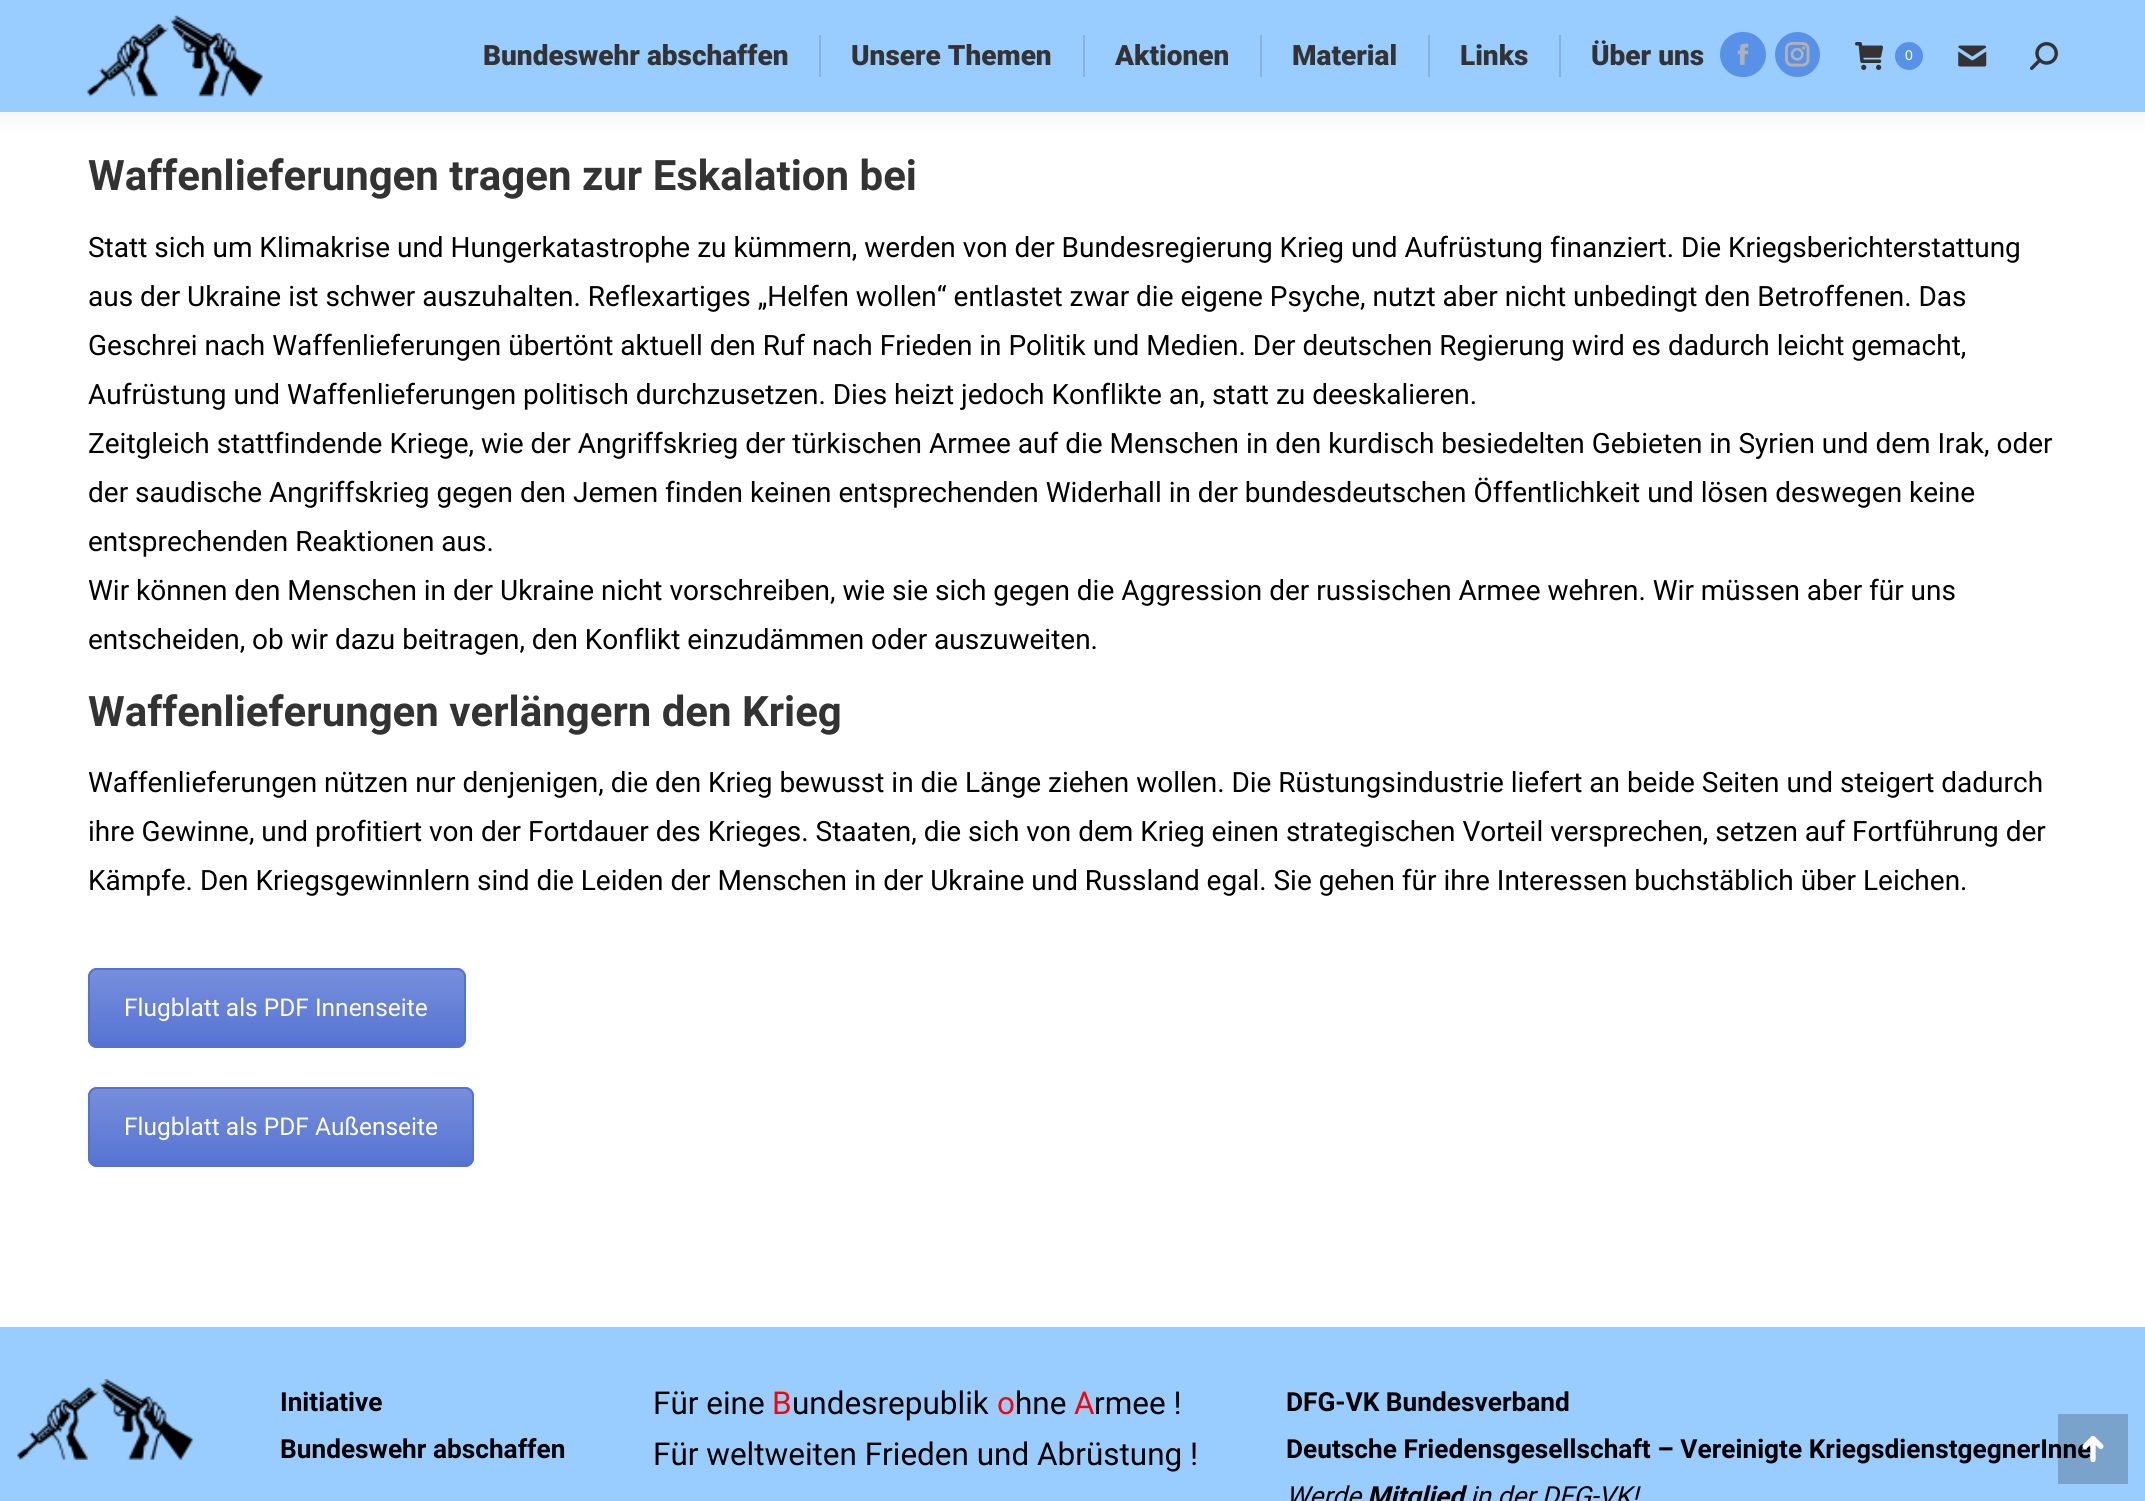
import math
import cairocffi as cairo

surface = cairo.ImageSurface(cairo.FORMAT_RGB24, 2145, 1501)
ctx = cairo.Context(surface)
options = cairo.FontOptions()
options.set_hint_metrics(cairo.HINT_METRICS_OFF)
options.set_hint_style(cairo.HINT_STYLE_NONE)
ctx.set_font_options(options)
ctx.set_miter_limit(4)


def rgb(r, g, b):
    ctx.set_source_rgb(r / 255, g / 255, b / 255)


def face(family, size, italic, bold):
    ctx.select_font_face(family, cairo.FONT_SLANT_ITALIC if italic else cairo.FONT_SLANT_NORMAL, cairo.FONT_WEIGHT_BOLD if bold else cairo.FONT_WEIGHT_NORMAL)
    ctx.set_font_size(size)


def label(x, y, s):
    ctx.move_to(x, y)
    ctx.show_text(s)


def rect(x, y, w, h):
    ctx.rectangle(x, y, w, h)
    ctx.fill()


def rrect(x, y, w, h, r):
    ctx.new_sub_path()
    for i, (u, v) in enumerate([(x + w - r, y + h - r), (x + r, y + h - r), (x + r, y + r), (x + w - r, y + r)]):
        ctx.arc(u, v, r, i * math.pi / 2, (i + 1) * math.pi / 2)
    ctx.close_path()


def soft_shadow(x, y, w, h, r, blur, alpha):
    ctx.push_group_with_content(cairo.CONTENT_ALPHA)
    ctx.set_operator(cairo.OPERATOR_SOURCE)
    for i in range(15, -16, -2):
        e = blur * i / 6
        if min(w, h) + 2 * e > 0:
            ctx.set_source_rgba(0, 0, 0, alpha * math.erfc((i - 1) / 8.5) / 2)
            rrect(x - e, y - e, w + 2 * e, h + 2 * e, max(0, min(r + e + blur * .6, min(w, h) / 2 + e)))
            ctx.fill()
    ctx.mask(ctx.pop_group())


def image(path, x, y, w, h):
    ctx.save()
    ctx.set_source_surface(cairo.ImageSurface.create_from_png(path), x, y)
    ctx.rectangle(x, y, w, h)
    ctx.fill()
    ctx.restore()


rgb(255, 255, 255)
ctx.paint()
rgb(0, 0, 0)
soft_shadow(-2, -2, 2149, 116, 0, 13, 0.07)
rgb(153, 204, 255)
rect(0, 0, 2145, 112)
image('image0.png', 87, 15, 176, 82)
face('Roboto Black', 28, 0, 0)
rgb(51, 51, 51)
label(483, 65, 'Bundeswehr abschaffen')
rgb(134, 178, 222)
rect(819, 35, 2, 42)
rgb(51, 51, 51)
label(851, 65, 'Unsere Themen')
rgb(134, 178, 222)
rect(1083, 35, 2, 42)
rgb(51, 51, 51)
label(1115, 65, 'Aktionen')
rgb(134, 178, 222)
rect(1260, 35, 2, 42)
rgb(51, 51, 51)
label(1292, 65, 'Material')
rgb(134, 178, 222)
rect(1428, 35, 2, 42)
rgb(51, 51, 51)
label(1460, 65, 'Links')
rgb(134, 178, 222)
rect(1559, 35, 2, 42)
rgb(51, 51, 51)
label(1591, 65, 'Über uns')
rgb(88, 145, 232)
rrect(1720, 32, 46, 45, 22.5)
ctx.fill()
image('image1.png', 1737, 43, 12, 22)
ctx.arc(1797.5, 54.5, 22.5, 0, 2 * math.pi)
ctx.fill()
image('image2.png', 1785, 42, 25, 25)
image('image3.png', 1855, 42, 28, 28)
ctx.arc(1909, 56, 14, 0, 2 * math.pi)
ctx.fill()
face('Liberation Sans', 14, 0, 0)
rgb(255, 255, 255)
label(1905, 60, '0')
image('image4.png', 1958, 45, 29, 22)
image('image5.png', 2030, 42, 28, 28)
face('Roboto', 42, 0, 1)
rgb(51, 51, 51)
label(88, 190, 'Waffenlieferungen tragen zur Eskalation bei')
face('Roboto', 28, 0, 0)
rgb(0, 0, 0)
label(88, 257, 'Statt sich um Klimakrise und Hungerkatastrophe zu kümmern, werden von der Bundesregierung Krieg und Aufrüstung finanziert. Die Kriegsberichterstattung')
label(88, 306, 'aus der Ukraine ist schwer auszuhalten. Reflexartiges „Helfen wollen“ entlastet zwar die eigene Psyche, nutzt aber nicht unbedingt den Betroffenen. Das')
label(88, 355, 'Geschrei nach Waffenlieferungen übertönt aktuell den Ruf nach Frieden in Politik und Medien. Der deutschen Regierung wird es dadurch leicht gemacht,')
label(88, 404, 'Aufrüstung und Waffenlieferungen politisch durchzusetzen. Dies heizt jedoch Konflikte an, statt zu deeskalieren.')
label(88, 453, 'Zeitgleich stattfindende Kriege, wie der Angriffskrieg der türkischen Armee auf die Menschen in den kurdisch besiedelten Gebieten in Syrien und dem Irak, oder')
label(88, 502, 'der saudische Angriffskrieg gegen den Jemen finden keinen entsprechenden Widerhall in der bundesdeutschen Öffentlichkeit und lösen deswegen keine')
label(88, 551, 'entsprechenden Reaktionen aus.')
label(88, 600, 'Wir können den Menschen in der Ukraine nicht vorschreiben, wie sie sich gegen die Aggression der russischen Armee wehren. Wir müssen aber für uns')
label(88, 649, 'entscheiden, ob wir dazu beitragen, den Konflikt einzudämmen oder auszuweiten.')
face('Roboto', 42, 0, 1)
rgb(51, 51, 51)
label(88, 726, 'Waffenlieferungen verlängern den Krieg')
face('Roboto', 28, 0, 0)
rgb(0, 0, 0)
label(88, 792, 'Waffenlieferungen nützen nur denjenigen, die den Krieg bewusst in die Länge ziehen wollen. Die Rüstungsindustrie liefert an beide Seiten und steigert dadurch')
label(88, 841, 'ihre Gewinne, und profitiert von der Fortdauer des Krieges. Staaten, die sich von dem Krieg einen strategischen Vorteil versprechen, setzen auf Fortführung der')
label(88, 890, 'Kämpfe. Den Kriegsgewinnlern sind die Leiden der Menschen in der Ukraine und Russland egal. Sie gehen für ihre Interessen buchstäblich über Leichen.')
rgb(84, 114, 210)
rrect(88, 968, 378, 80, 9)
ctx.fill()
ctx.save()
rrect(88, 968, 378, 80, 9)
ctx.clip()
gradient = cairo.LinearGradient(277, 970, 277, 1047)
gradient.add_color_stop_rgba(0, 1, 1, 1, 0.2)
gradient.add_color_stop_rgba(1, 1, 1, 1, 0.01)
ctx.set_source(gradient)
rect(88, 970, 378, 72)
ctx.restore()
rrect(89, 969, 376, 78, 8)
ctx.stroke()
face('Roboto', 24.5, 0, 0)
rgb(255, 255, 255)
label(124, 1016, 'Flugblatt als PDF Innenseite')
rgb(84, 114, 210)
rrect(88, 1087, 386, 80, 9)
ctx.fill()
ctx.save()
rrect(88, 1087, 386, 80, 9)
ctx.clip()
gradient = cairo.LinearGradient(281, 1089, 281, 1166)
gradient.add_color_stop_rgba(0, 1, 1, 1, 0.2)
gradient.add_color_stop_rgba(1, 1, 1, 1, 0.01)
ctx.set_source(gradient)
rect(88, 1089, 386, 72)
ctx.restore()
rrect(89, 1088, 384, 78, 8)
ctx.stroke()
rgb(255, 255, 255)
label(124, 1135, 'Flugblatt als PDF Außenseite')
rgb(153, 204, 255)
rect(0, 1327, 2145, 174)
image('image6.png', 17, 1379, 176, 81)
face('Roboto', 26.25, 0, 1)
rgb(0, 0, 0)
label(280, 1411, 'Initiative')
label(280, 1458, 'Bundeswehr abschaffen')
face('Roboto', 31.5, 0, 0)
label(653, 1414, 'Für eine')
rgb(255, 0, 0)
label(772, 1414, 'B')
rgb(0, 0, 0)
label(792, 1414, 'undesrepublik')
rgb(255, 0, 0)
label(997, 1414, 'o')
rgb(0, 0, 0)
label(1015, 1414, 'hne')
rgb(255, 0, 0)
label(1074, 1414, 'A')
rgb(0, 0, 0)
label(1094, 1414, 'rmee !')
label(653, 1465, 'Für weltweiten Frieden und Abrüstung !')
face('Roboto', 26.25, 0, 1)
label(1286, 1411, 'DFG-VK Bundesverband')
label(1286, 1458, 'Deutsche Friedensgesellschaft – Vereinigte KriegsdienstgegnerInne')
face('Roboto', 26.25, 1, 0)
label(1286, 1505, 'Werde')
face('Roboto', 26.25, 1, 1)
label(1367, 1505, 'Mitglied')
face('Roboto', 26.25, 1, 0)
label(1470, 1505, 'in der DFG-VK!')
ctx.set_source_rgba(0, 0, 0, 0.2)
rect(2058, 1414, 70, 70)
image('image7.png', 2082, 1435, 22, 28)
surface.write_to_png('render.png')
